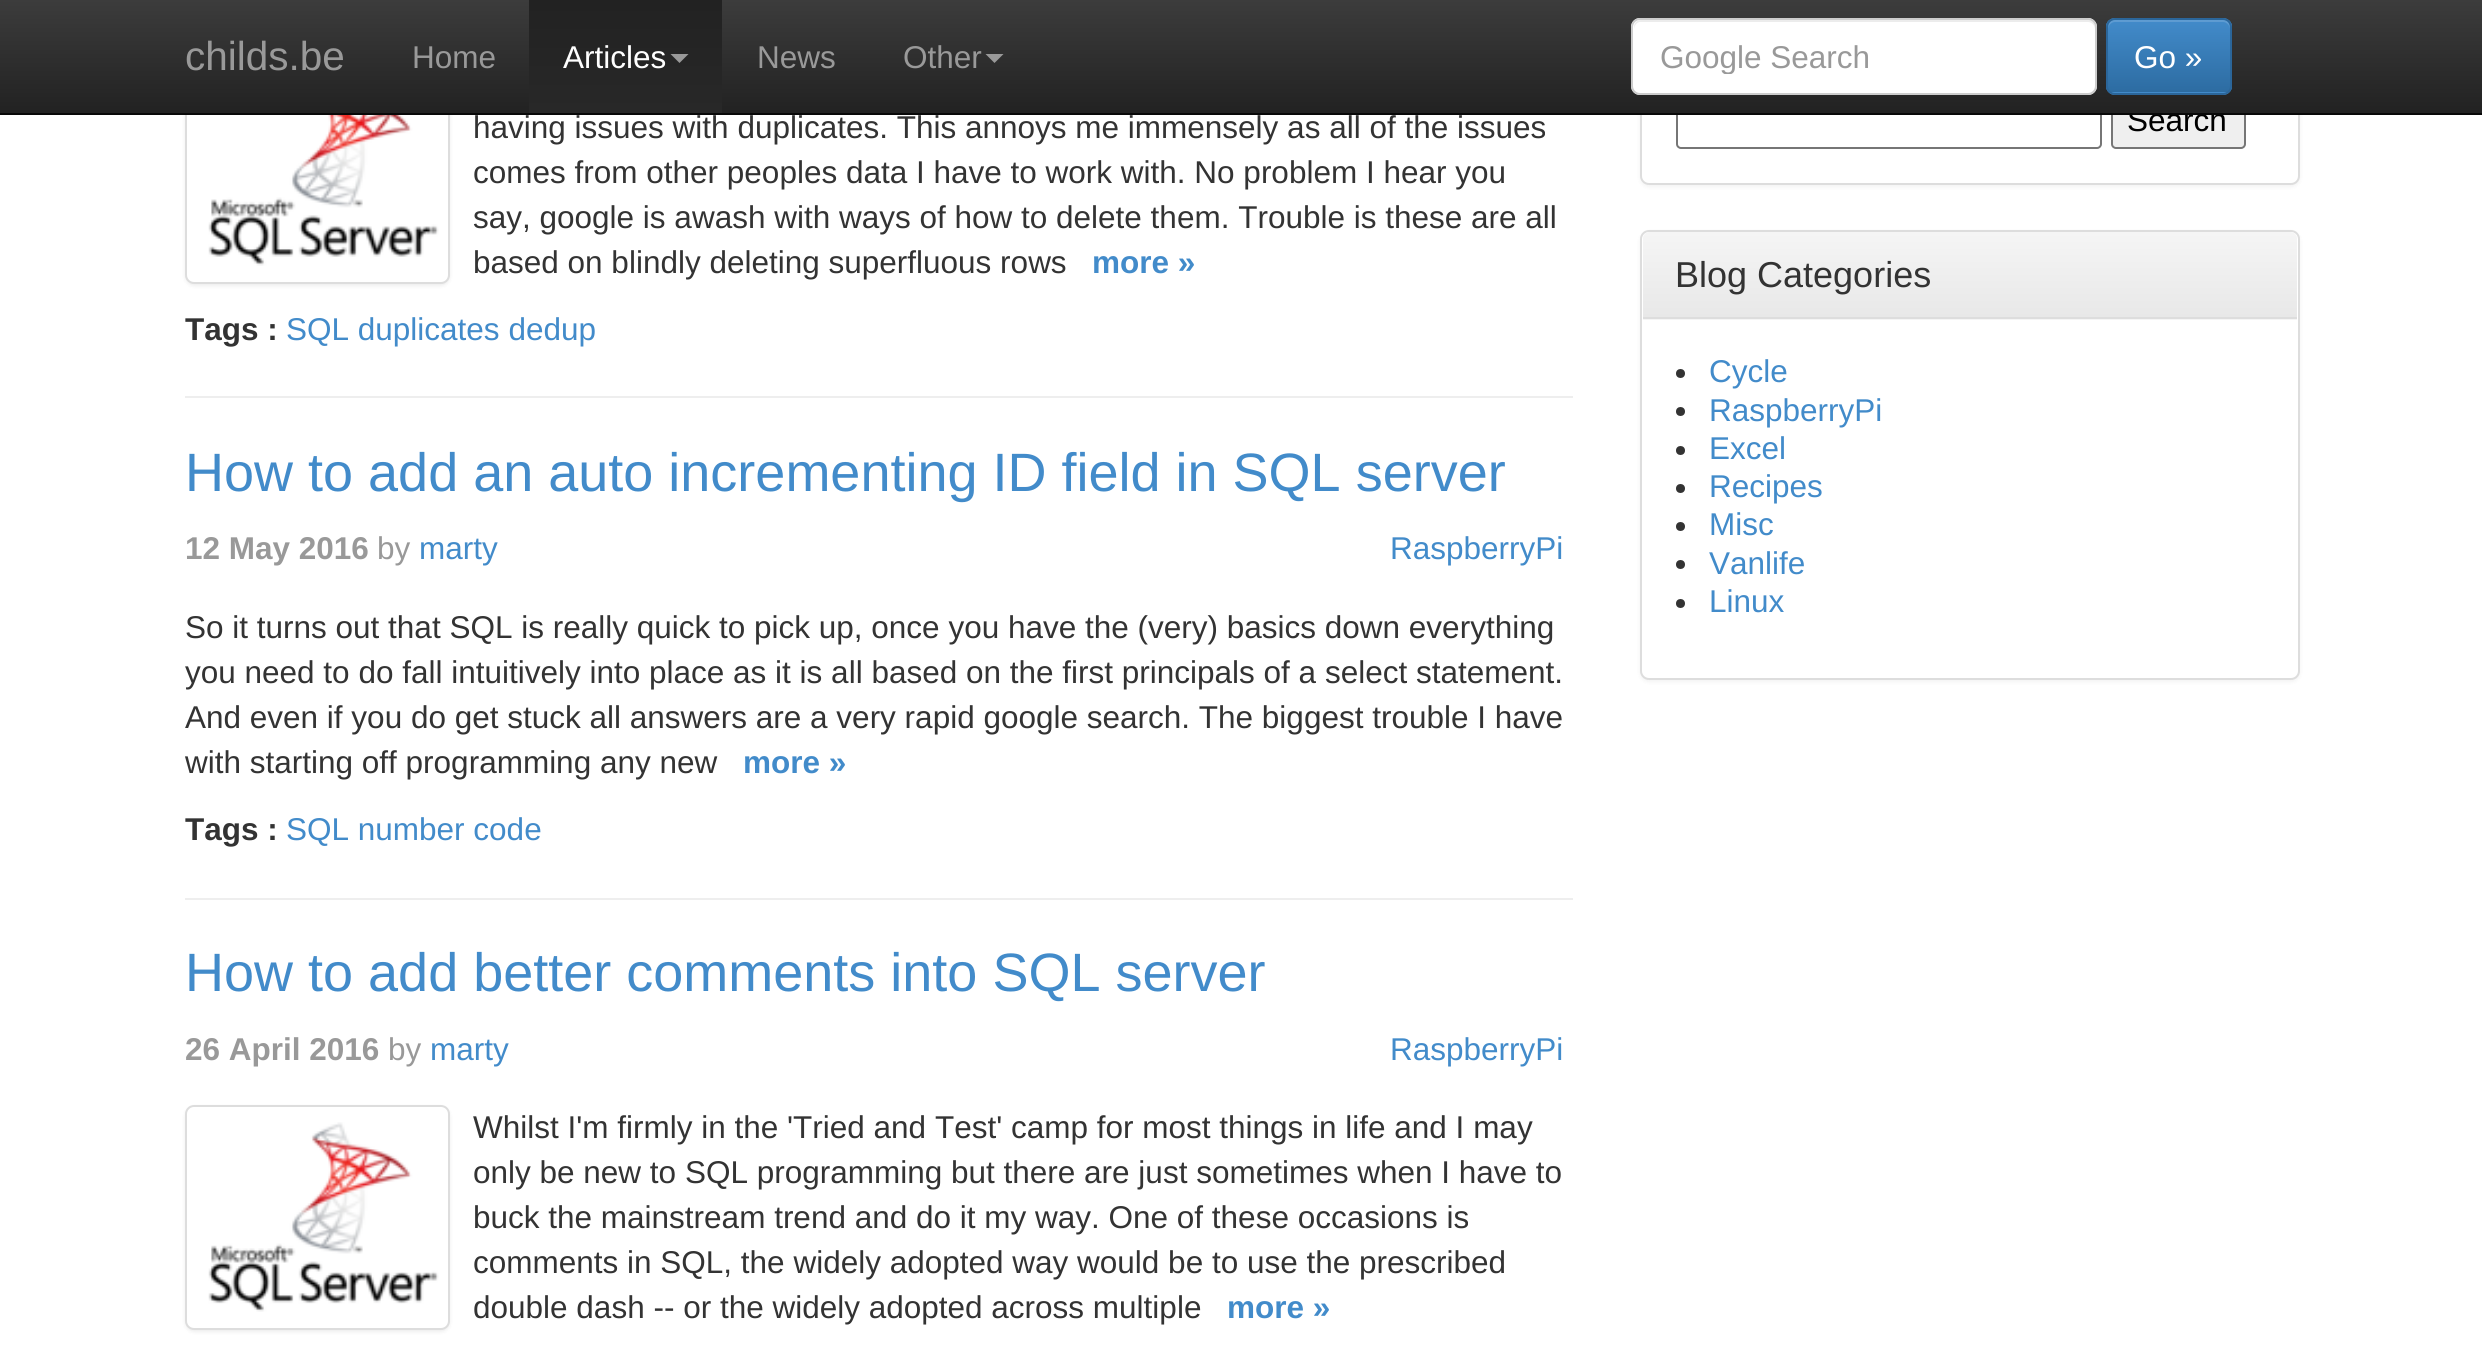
import math
import cairocffi as cairo

surface = cairo.ImageSurface(cairo.FORMAT_RGB24, 2482, 1372)
ctx = cairo.Context(surface)
options = cairo.FontOptions()
options.set_hint_metrics(cairo.HINT_METRICS_OFF)
options.set_hint_style(cairo.HINT_STYLE_NONE)
ctx.set_font_options(options)
ctx.set_miter_limit(4)


def rgb(r, g, b):
    ctx.set_source_rgb(r / 255, g / 255, b / 255)


def face(family, size, italic, bold):
    ctx.select_font_face(family, cairo.FONT_SLANT_ITALIC if italic else cairo.FONT_SLANT_NORMAL, cairo.FONT_WEIGHT_BOLD if bold else cairo.FONT_WEIGHT_NORMAL)
    ctx.set_font_size(size)


def label(x, y, s):
    ctx.move_to(x, y)
    ctx.show_text(s)


def rect(x, y, w, h):
    ctx.rectangle(x, y, w, h)
    ctx.fill()


def rrect(x, y, w, h, r):
    ctx.new_sub_path()
    for i, (u, v) in enumerate([(x + w - r, y + h - r), (x + r, y + h - r), (x + r, y + r), (x + w - r, y + r)]):
        ctx.arc(u, v, r, i * math.pi / 2, (i + 1) * math.pi / 2)
    ctx.close_path()


def soft_shadow(x, y, w, h, r, blur, alpha):
    ctx.push_group_with_content(cairo.CONTENT_ALPHA)
    ctx.set_operator(cairo.OPERATOR_SOURCE)
    for i in range(15, -16, -2):
        e = blur * i / 6
        if min(w, h) + 2 * e > 0:
            ctx.set_source_rgba(0, 0, 0, alpha * math.erfc((i - 1) / 8.5) / 2)
            rrect(x - e, y - e, w + 2 * e, h + 2 * e, max(0, min(r + e + blur * .6, min(w, h) / 2 + e)))
            ctx.fill()
    ctx.mask(ctx.pop_group())


def image(path, x, y, w, h):
    ctx.save()
    ctx.set_source_surface(cairo.ImageSurface.create_from_png(path), x, y)
    ctx.rectangle(x, y, w, h)
    ctx.fill()
    ctx.restore()


rgb(255, 255, 255)
ctx.paint()
rgb(0, 0, 0)
soft_shadow(185, 61, 265, 225, 9, 2, 0.07)
rgb(255, 255, 255)
rrect(186, 60, 263, 223, 8)
ctx.fill_preserve()
rgb(221, 221, 221)
ctx.stroke()
rgb(0, 0, 0)
soft_shadow(1640, -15, 660, 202, 9, 2, 0.05)
rgb(255, 255, 255)
rrect(1641, -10, 658, 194, 8)
ctx.fill_preserve()
rgb(221, 221, 221)
ctx.stroke()
rrect(1677, 91, 424, 57, 4)
rgb(118, 118, 118)
ctx.stroke()
rgb(239, 239, 239)
rrect(2112, 91, 133, 57, 4)
ctx.fill_preserve()
rgb(118, 118, 118)
ctx.stroke()
face('Liberation Sans', 31.5, 0, 0)
rgb(0, 0, 0)
label(2127, 131, 'Search')
gradient = cairo.LinearGradient(1242, 0, 1242, 113)
gradient.add_color_stop_rgba(0, 0.235, 0.235, 0.235, 1)
gradient.add_color_stop_rgba(1, 0.133, 0.133, 0.133, 1)
ctx.set_source(gradient)
rect(0, 0, 2482, 113)
rgb(8, 8, 8)
rect(0, 113, 2482, 2)
face('Liberation Sans', 40.5, 0, 0)
rgb(153, 153, 153)
label(185, 70, 'childs.be')
face('Liberation Sans', 31.5, 0, 0)
label(412, 68, 'Home')
gradient = cairo.LinearGradient(626, 0, 626, 113)
gradient.add_color_stop_rgba(0, 0.133, 0.133, 0.133, 1)
gradient.add_color_stop_rgba(1, 0.157, 0.157, 0.157, 1)
ctx.set_source(gradient)
rect(529, 0, 193, 113)
rgb(255, 255, 255)
label(563, 68, 'Articles')
rgb(153, 153, 153)
ctx.new_path()
ctx.move_to(670.5, 54)
ctx.line_to(688.5, 54)
ctx.line_to(679.5, 63)
ctx.close_path()
ctx.fill()
label(757, 68, 'News')
label(903, 68, 'Other')
ctx.new_path()
ctx.move_to(985.5, 54)
ctx.line_to(1003.5, 54)
ctx.line_to(994.5, 63)
ctx.close_path()
ctx.fill()
rgb(255, 255, 255)
rrect(1631, 18, 466, 77, 9)
ctx.fill()
rgb(236, 236, 236)
ctx.new_path()
ctx.move_to(1640, 22)
ctx.line_to(2088, 22)
ctx.curve_to(2092, 22, 2095, 26, 2095, 29)
ctx.line_to(2095, 27)
ctx.curve_to(2095, 23, 2092, 20, 2088, 20)
ctx.line_to(1641, 20)
ctx.curve_to(1637, 20, 1634, 23, 1634, 27)
ctx.line_to(1634, 29)
ctx.curve_to(1634, 26, 1637, 22, 1640, 22)
ctx.close_path()
ctx.fill()
rrect(1632, 19, 464, 75, 8)
rgb(204, 204, 204)
ctx.stroke()
ctx.save()
ctx.rectangle(1661, 38, 407, 36)
ctx.clip()
rgb(153, 153, 153)
label(1660, 68, 'Google Search')
ctx.restore()
rgb(66, 139, 202)
rrect(2106, 18, 126, 77, 9)
ctx.fill()
ctx.save()
rrect(2106, 18, 126, 77, 9)
ctx.clip()
gradient = cairo.LinearGradient(2169, 20, 2169, 92)
gradient.add_color_stop_rgba(0, 0.259, 0.545, 0.792, 1)
gradient.add_color_stop_rgba(1, 0.176, 0.424, 0.635, 1)
ctx.set_source(gradient)
rect(2106, 20, 126, 72)
ctx.restore()
ctx.set_source_rgba(1, 1, 1, 0.15)
ctx.new_path()
ctx.move_to(2115, 22)
ctx.line_to(2223, 22)
ctx.curve_to(2227, 22, 2230, 26, 2230, 29)
ctx.curve_to(2230, 15, 2215, 20, 2205, 20)
ctx.line_to(2133, 20)
ctx.curve_to(2123, 20, 2108, 15, 2108, 29)
ctx.curve_to(2108, 26, 2111, 22, 2115, 22)
ctx.close_path()
ctx.fill()
rrect(2107, 19, 124, 75, 8)
rgb(43, 102, 154)
ctx.stroke()
rgb(255, 255, 255)
label(2134, 68, 'Go »')
image('image0.png', 208, 115, 231, 151)
rgb(51, 51, 51)
label(473, 138, 'having issues with duplicates. This annoys me immensely as all of the issues')
label(473, 183, 'comes from other peoples data I have to work with. No problem I hear you')
label(473, 228, 'say, google is awash with ways of how to delete them. Trouble is these are all')
label(473, 273, 'based on blindly deleting superfluous rows')
face('Liberation Sans', 31.5, 0, 1)
rgb(66, 139, 202)
label(1092, 273, 'more »')
rgb(51, 51, 51)
label(185, 340, 'Tags :')
face('Liberation Sans', 31.5, 0, 0)
rgb(66, 139, 202)
label(286, 340, 'SQL duplicates dedup')
rgb(238, 238, 238)
rect(185, 396, 1388, 2)
face('Liberation Sans', 54, 0, 0)
rgb(66, 139, 202)
label(185, 491, 'How to add an auto incrementing ID field in SQL server')
face('Liberation Sans', 31.5, 0, 1)
rgb(153, 153, 153)
label(185, 559, '12 May 2016')
face('Liberation Sans', 31.5, 0, 0)
label(377, 559, 'by')
rgb(66, 139, 202)
label(419, 559, 'marty')
label(1390, 559, 'RaspberryPi')
rgb(51, 51, 51)
label(185, 638, 'So it turns out that SQL is really quick to pick up, once you have the (very) basics down everything')
label(185, 683, 'you need to do fall intuitively into place as it is all based on the first principals of a select statement.')
label(185, 728, 'And even if you do get stuck all answers are a very rapid google search. The biggest trouble I have')
label(185, 773, 'with starting off programming any new')
face('Liberation Sans', 31.5, 0, 1)
rgb(66, 139, 202)
label(743, 773, 'more »')
rgb(51, 51, 51)
label(185, 840, 'Tags :')
face('Liberation Sans', 31.5, 0, 0)
rgb(66, 139, 202)
label(286, 840, 'SQL number code')
rgb(238, 238, 238)
rect(185, 898, 1388, 2)
face('Liberation Sans', 54, 0, 0)
rgb(66, 139, 202)
label(185, 991, 'How to add better comments into SQL server')
face('Liberation Sans', 31.5, 0, 1)
rgb(153, 153, 153)
label(185, 1060, '26 April 2016')
face('Liberation Sans', 31.5, 0, 0)
label(388, 1060, 'by')
rgb(66, 139, 202)
label(430, 1060, 'marty')
label(1390, 1060, 'RaspberryPi')
rgb(0, 0, 0)
soft_shadow(185, 1107, 265, 225, 9, 2, 0.07)
rgb(255, 255, 255)
rrect(186, 1106, 263, 223, 8)
ctx.fill_preserve()
rgb(221, 221, 221)
ctx.stroke()
image('image1.png', 208, 1122, 231, 190)
rgb(51, 51, 51)
label(473, 1138, 'Whilst I\'m firmly in the \'Tried and Test\' camp for most things in life and I may')
label(473, 1183, 'only be new to SQL programming but there are just sometimes when I have to')
label(473, 1228, 'buck the mainstream trend and do it my way. One of these occasions is')
label(473, 1273, 'comments in SQL, the widely adopted way would be to use the prescribed')
label(473, 1318, 'double dash -- or the widely adopted across multiple')
face('Liberation Sans', 31.5, 0, 1)
rgb(66, 139, 202)
label(1227, 1318, 'more »')
rgb(0, 0, 0)
soft_shadow(1640, 232, 660, 450, 9, 2, 0.05)
rgb(255, 255, 255)
rrect(1641, 231, 658, 448, 8)
ctx.fill_preserve()
rgb(221, 221, 221)
ctx.stroke()
rgb(245, 245, 245)
ctx.new_path()
ctx.move_to(1650, 232)
ctx.line_to(2290, 232)
ctx.curve_to(2294, 232, 2297, 235, 2297, 239)
ctx.line_to(2297, 320)
ctx.line_to(1643, 320)
ctx.line_to(1643, 239)
ctx.curve_to(1643, 235, 1646, 232, 1650, 232)
ctx.close_path()
ctx.fill()
gradient = cairo.LinearGradient(1970, 232, 1970, 317)
gradient.add_color_stop_rgba(0, 0.961, 0.961, 0.961, 1)
gradient.add_color_stop_rgba(1, 0.91, 0.91, 0.91, 1)
ctx.set_source(gradient)
ctx.new_path()
ctx.move_to(1650, 232)
ctx.line_to(2290, 232)
ctx.curve_to(2294, 232, 2297, 235, 2297, 239)
ctx.line_to(2297, 317)
ctx.line_to(1643, 317)
ctx.line_to(1643, 239)
ctx.curve_to(1643, 235, 1646, 232, 1650, 232)
ctx.close_path()
ctx.fill()
rgb(221, 221, 221)
rect(1643, 317, 654, 2)
face('Liberation Sans', 36, 0, 0)
rgb(51, 51, 51)
label(1675, 287, 'Blog Categories')
ctx.new_path()
ctx.arc(1680.5, 373.5, 4.5, 0, 2 * math.pi)
ctx.fill()
face('Liberation Sans', 31.5, 0, 0)
rgb(66, 139, 202)
label(1709, 382, 'Cycle')
rgb(51, 51, 51)
ctx.new_path()
ctx.arc(1680.5, 411.5, 4.5, 0, 2 * math.pi)
ctx.fill()
rgb(66, 139, 202)
label(1709, 421, 'RaspberryPi')
rgb(51, 51, 51)
ctx.new_path()
ctx.arc(1680.5, 450.5, 4.5, 0, 2 * math.pi)
ctx.fill()
rgb(66, 139, 202)
label(1709, 459, 'Excel')
rgb(51, 51, 51)
ctx.new_path()
ctx.arc(1680.5, 488.5, 4.5, 0, 2 * math.pi)
ctx.fill()
rgb(66, 139, 202)
label(1709, 497, 'Recipes')
rgb(51, 51, 51)
ctx.new_path()
ctx.arc(1680.5, 526.5, 4.5, 0, 2 * math.pi)
ctx.fill()
rgb(66, 139, 202)
label(1709, 535, 'Misc')
rgb(51, 51, 51)
ctx.new_path()
ctx.arc(1680.5, 564.5, 4.5, 0, 2 * math.pi)
ctx.fill()
rgb(66, 139, 202)
label(1709, 574, 'Vanlife')
rgb(51, 51, 51)
ctx.new_path()
ctx.arc(1680.5, 603.5, 4.5, 0, 2 * math.pi)
ctx.fill()
rgb(66, 139, 202)
label(1709, 612, 'Linux')
surface.write_to_png('render.png')
